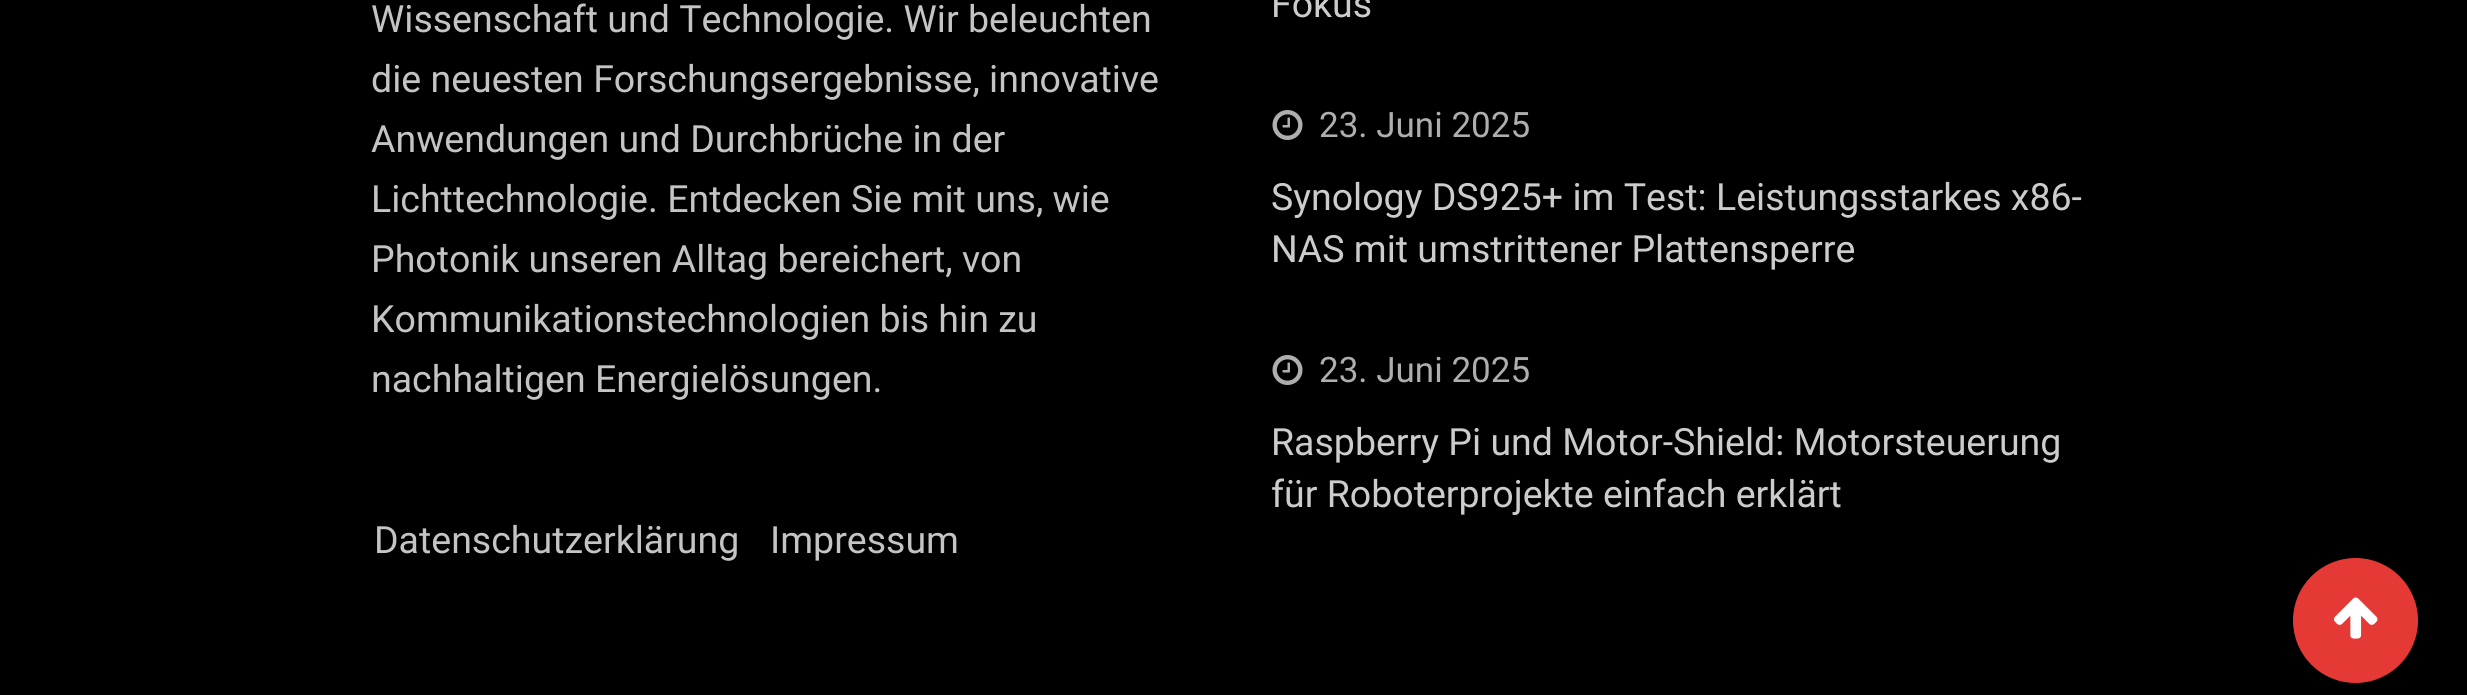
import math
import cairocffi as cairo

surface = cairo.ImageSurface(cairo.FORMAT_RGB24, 2467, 695)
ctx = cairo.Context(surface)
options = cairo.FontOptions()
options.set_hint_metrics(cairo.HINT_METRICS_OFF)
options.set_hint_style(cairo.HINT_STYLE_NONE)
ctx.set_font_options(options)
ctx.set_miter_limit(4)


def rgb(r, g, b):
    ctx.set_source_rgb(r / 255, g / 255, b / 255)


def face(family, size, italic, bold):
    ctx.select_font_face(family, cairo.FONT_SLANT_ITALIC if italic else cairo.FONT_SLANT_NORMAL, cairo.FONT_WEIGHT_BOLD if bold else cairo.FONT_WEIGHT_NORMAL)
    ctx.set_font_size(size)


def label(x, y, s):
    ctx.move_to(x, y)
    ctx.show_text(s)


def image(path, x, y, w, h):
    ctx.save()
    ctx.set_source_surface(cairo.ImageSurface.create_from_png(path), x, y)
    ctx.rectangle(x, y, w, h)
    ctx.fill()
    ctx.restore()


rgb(0, 0, 0)
ctx.paint()
face('Roboto', 37.5, 0, 0)
rgb(196, 196, 196)
label(371, 32, 'Wissenschaft und Technologie. Wir beleuchten')
label(371, 92, 'die neuesten Forschungsergebnisse, innovative')
label(371, 152, 'Anwendungen und Durchbrüche in der')
label(371, 212, 'Lichttechnologie. Entdecken Sie mit uns, wie')
label(371, 272, 'Photonik unseren Alltag bereichert, von')
label(371, 332, 'Kommunikationstechnologien bis hin zu')
label(371, 392, 'nachhaltigen Energielösungen.')
label(374, 553, 'Datenschutzerklärung')
label(770, 553, 'Impressum')
rgb(204, 204, 204)
label(1271, 17, 'Fokus')
image('image0.png', 1272, 110, 31, 30)
face('Roboto', 35, 0, 0)
rgb(174, 174, 174)
label(1319, 137, '23. Juni 2025')
face('Roboto', 37.5, 0, 0)
rgb(204, 204, 204)
label(1271, 210, 'Synology DS925+ im Test: Leistungsstarkes x86-')
label(1271, 262, 'NAS mit umstrittener Plattensperre')
image('image0.png', 1272, 355, 31, 30)
face('Roboto', 35, 0, 0)
rgb(174, 174, 174)
label(1319, 382, '23. Juni 2025')
face('Roboto', 37.5, 0, 0)
rgb(204, 204, 204)
label(1271, 455, 'Raspberry Pi und Motor-Shield: Motorsteuerung')
label(1271, 507, 'für Roboterprojekte einfach erklärt')
rgb(229, 57, 53)
ctx.new_path()
ctx.arc(2355.5, 620.5, 60, 0, 2 * math.pi)
ctx.fill_preserve()
ctx.set_line_width(5)
ctx.stroke()
image('image1.png', 2334, 597, 44, 42)
surface.write_to_png('render.png')
